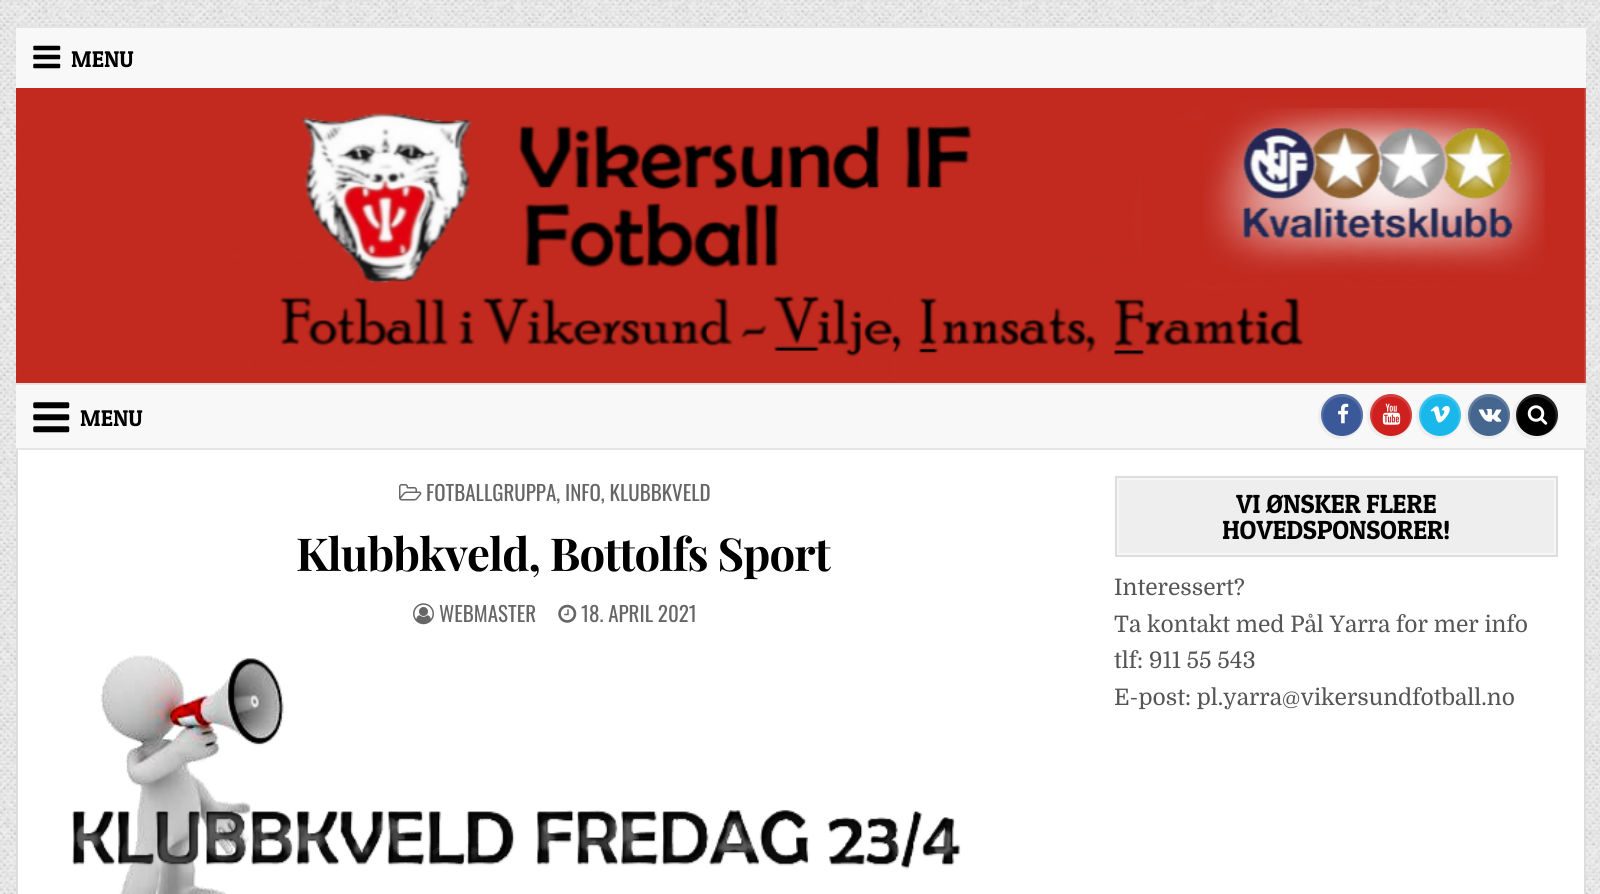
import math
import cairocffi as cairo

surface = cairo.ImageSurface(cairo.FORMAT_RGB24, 1600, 894)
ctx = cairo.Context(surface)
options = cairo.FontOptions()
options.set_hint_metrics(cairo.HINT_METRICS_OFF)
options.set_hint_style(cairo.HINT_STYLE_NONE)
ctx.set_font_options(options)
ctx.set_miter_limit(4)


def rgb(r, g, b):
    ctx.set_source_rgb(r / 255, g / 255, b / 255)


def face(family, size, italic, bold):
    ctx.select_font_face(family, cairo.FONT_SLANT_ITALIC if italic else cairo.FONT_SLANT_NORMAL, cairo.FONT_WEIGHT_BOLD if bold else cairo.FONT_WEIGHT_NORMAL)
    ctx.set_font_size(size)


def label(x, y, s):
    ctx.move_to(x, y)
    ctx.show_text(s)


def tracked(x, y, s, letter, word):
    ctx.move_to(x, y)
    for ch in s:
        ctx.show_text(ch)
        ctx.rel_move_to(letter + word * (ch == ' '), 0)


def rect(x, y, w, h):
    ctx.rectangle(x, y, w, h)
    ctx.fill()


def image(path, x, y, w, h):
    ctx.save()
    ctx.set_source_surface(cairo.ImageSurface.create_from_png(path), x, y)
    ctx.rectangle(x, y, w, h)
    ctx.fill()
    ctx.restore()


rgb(255, 255, 255)
ctx.paint()
image('image0.png', 0, 0, 1600, 894)
rgb(248, 248, 248)
rect(16, 28, 1570, 60)
rgb(229, 229, 229)
rect(16, 26, 1570, 2)
image('image1.png', 33, 45, 28, 24)
face('Patua One', 22.75, 0, 0)
rgb(0, 0, 0)
label(71, 67, 'MENU')
image('image2.png', 16, 88, 1570, 295)
rgb(248, 248, 248)
rect(16, 385, 1570, 63)
rgb(229, 229, 229)
rect(16, 383, 1570, 2)
rect(16, 448, 1570, 2)
image('image3.png', 33, 402, 37, 31)
rgb(0, 0, 0)
label(80, 426, 'MENU')
rgb(238, 238, 238)
ctx.new_path()
ctx.move_to(1363, 419)
ctx.curve_to(1361, 428, 1353, 436, 1342, 436)
ctx.curve_to(1331, 436, 1321, 426, 1321, 415)
ctx.curve_to(1321, 404, 1329, 396, 1338, 394)
ctx.curve_to(1327, 395, 1318, 405, 1318, 416)
ctx.curve_to(1318, 429, 1328, 439, 1340, 439)
ctx.curve_to(1352, 439, 1362, 430, 1363, 419)
ctx.close_path()
ctx.fill()
rgb(59, 89, 152)
ctx.arc(1342, 415, 21, 0, 2 * math.pi)
ctx.fill()
ctx.set_source_rgba(1, 1, 1, 0.14)
ctx.new_path()
ctx.move_to(1342, 397)
ctx.curve_to(1364, 397, 1367, 427, 1350, 435)
ctx.curve_to(1357, 431, 1363, 424, 1363, 415)
ctx.curve_to(1363, 403, 1354, 394, 1342, 394)
ctx.curve_to(1330, 394, 1321, 403, 1321, 415)
ctx.curve_to(1321, 424, 1327, 431, 1334, 435)
ctx.curve_to(1317, 427, 1320, 397, 1342, 397)
ctx.close_path()
ctx.fill()
image('image4.png', 1338, 403, 11, 21)
rgb(238, 238, 238)
ctx.new_path()
ctx.move_to(1412, 419)
ctx.curve_to(1410, 428, 1402, 436, 1391, 436)
ctx.curve_to(1380, 436, 1370, 426, 1370, 415)
ctx.curve_to(1370, 404, 1378, 396, 1387, 394)
ctx.curve_to(1376, 395, 1367, 405, 1367, 416)
ctx.curve_to(1367, 429, 1377, 439, 1390, 439)
ctx.curve_to(1401, 439, 1411, 430, 1412, 419)
ctx.close_path()
ctx.fill()
rgb(205, 32, 31)
ctx.arc(1391, 415, 21, 0, 2 * math.pi)
ctx.fill()
ctx.set_source_rgba(1, 1, 1, 0.14)
ctx.new_path()
ctx.move_to(1391, 397)
ctx.curve_to(1413, 397, 1416, 427, 1399, 435)
ctx.curve_to(1406, 431, 1412, 424, 1412, 415)
ctx.curve_to(1412, 403, 1403, 394, 1391, 394)
ctx.curve_to(1379, 394, 1370, 403, 1370, 415)
ctx.curve_to(1370, 424, 1376, 431, 1383, 435)
ctx.curve_to(1366, 427, 1369, 397, 1391, 397)
ctx.close_path()
ctx.fill()
image('image5.png', 1382, 403, 19, 22)
rgb(238, 238, 238)
ctx.new_path()
ctx.move_to(1461, 419)
ctx.curve_to(1459, 428, 1451, 436, 1440, 436)
ctx.curve_to(1429, 436, 1419, 426, 1419, 415)
ctx.curve_to(1419, 404, 1427, 396, 1436, 394)
ctx.curve_to(1425, 395, 1416, 405, 1416, 416)
ctx.curve_to(1416, 429, 1426, 439, 1438, 439)
ctx.curve_to(1450, 439, 1460, 430, 1461, 419)
ctx.close_path()
ctx.fill()
rgb(26, 183, 234)
ctx.arc(1440, 415, 21, 0, 2 * math.pi)
ctx.fill()
ctx.set_source_rgba(1, 1, 1, 0.14)
ctx.new_path()
ctx.move_to(1440, 397)
ctx.curve_to(1462, 397, 1465, 427, 1448, 435)
ctx.curve_to(1455, 431, 1461, 424, 1461, 415)
ctx.curve_to(1461, 403, 1452, 394, 1440, 394)
ctx.curve_to(1428, 394, 1419, 403, 1419, 415)
ctx.curve_to(1419, 424, 1425, 431, 1432, 435)
ctx.curve_to(1415, 427, 1418, 397, 1440, 397)
ctx.close_path()
ctx.fill()
image('image6.png', 1430, 406, 20, 17)
rgb(238, 238, 238)
ctx.new_path()
ctx.move_to(1510, 419)
ctx.curve_to(1508, 428, 1500, 436, 1489, 436)
ctx.curve_to(1478, 436, 1468, 426, 1468, 415)
ctx.curve_to(1468, 404, 1476, 396, 1485, 394)
ctx.curve_to(1474, 395, 1465, 405, 1465, 416)
ctx.curve_to(1465, 429, 1475, 439, 1488, 439)
ctx.curve_to(1499, 439, 1509, 430, 1510, 419)
ctx.close_path()
ctx.fill()
rgb(69, 102, 142)
ctx.arc(1489, 415, 21, 0, 2 * math.pi)
ctx.fill()
ctx.set_source_rgba(1, 1, 1, 0.14)
ctx.new_path()
ctx.move_to(1489, 397)
ctx.curve_to(1511, 397, 1514, 427, 1497, 435)
ctx.curve_to(1504, 431, 1510, 424, 1510, 415)
ctx.curve_to(1510, 403, 1501, 394, 1489, 394)
ctx.curve_to(1477, 394, 1468, 403, 1468, 415)
ctx.curve_to(1468, 424, 1474, 431, 1481, 435)
ctx.curve_to(1464, 427, 1467, 397, 1489, 397)
ctx.close_path()
ctx.fill()
image('image7.png', 1478, 408, 24, 14)
rgb(238, 238, 238)
ctx.new_path()
ctx.move_to(1533, 394)
ctx.curve_to(1524, 395, 1517, 400, 1514, 408)
ctx.curve_to(1511, 414, 1511, 420, 1514, 425)
ctx.curve_to(1525, 452, 1567, 436, 1557, 409)
ctx.curve_to(1559, 416, 1557, 424, 1551, 430)
ctx.curve_to(1547, 434, 1542, 436, 1536, 436)
ctx.curve_to(1511, 436, 1508, 398, 1533, 394)
ctx.close_path()
ctx.fill()
rgb(0, 0, 0)
ctx.arc(1537, 415, 21, 0, 2 * math.pi)
ctx.fill()
ctx.set_source_rgba(1, 1, 1, 0.14)
ctx.new_path()
ctx.move_to(1536, 397)
ctx.curve_to(1562, 397, 1562, 435, 1537, 436)
ctx.curve_to(1547, 436, 1556, 429, 1558, 419)
ctx.curve_to(1559, 414, 1558, 408, 1554, 403)
ctx.curve_to(1552, 400, 1549, 397, 1545, 396)
ctx.curve_to(1525, 387, 1507, 412, 1521, 428)
ctx.curve_to(1513, 417, 1518, 397, 1536, 397)
ctx.close_path()
ctx.fill()
image('image8.png', 1527, 405, 21, 20)
rgb(255, 255, 255)
rect(18, 450, 1566, 444)
rgb(221, 221, 221)
rect(1584, 450, 2, 444)
rect(16, 450, 2, 444)
image('image9.png', 399, 484, 23, 17)
face('Oswald', 21, 0, 0)
rgb(102, 102, 102)
label(426, 501, 'FOTBALLGRUPPA, INFO, KLUBBKVELD')
face('Playfair Display', 45.5, 0, 1)
rgb(0, 0, 0)
tracked(296, 571, 'Klubbkveld, Bottolfs Sport', -0.9, 0)
image('image10.png', 413, 603, 21, 22)
face('Oswald', 21, 0, 0)
rgb(102, 102, 102)
label(439, 622, 'WEBMASTER')
image('image11.png', 558, 604, 19, 19)
label(581, 622, '18. APRIL 2021')
image('image12.png', 72, 655, 889, 239)
rgb(238, 238, 238)
rect(1119, 480, 435, 73)
ctx.rectangle(1116, 477, 441, 79)
rgb(221, 221, 221)
ctx.stroke()
ctx.rectangle(1118, 479, 437, 75)
rgb(246, 246, 246)
ctx.stroke()
face('Patua One', 26.25, 0, 0)
rgb(0, 0, 0)
tracked(1236, 513, 'VI ØNSKER FLERE', -0.3, 0)
tracked(1222, 539, 'HOVEDSPONSORER!', -0.3, 0)
face('Domine', 22.75, 0, 0)
rgb(85, 85, 85)
label(1114, 595, 'Interessert?')
label(1114, 632, 'Ta kontakt med Pål Yarra for mer info')
label(1114, 668, 'tlf: 911 55 543')
label(1114, 705, 'E-post: pl.yarra@vikersundfotball.no')
surface.write_to_png('render.png')
